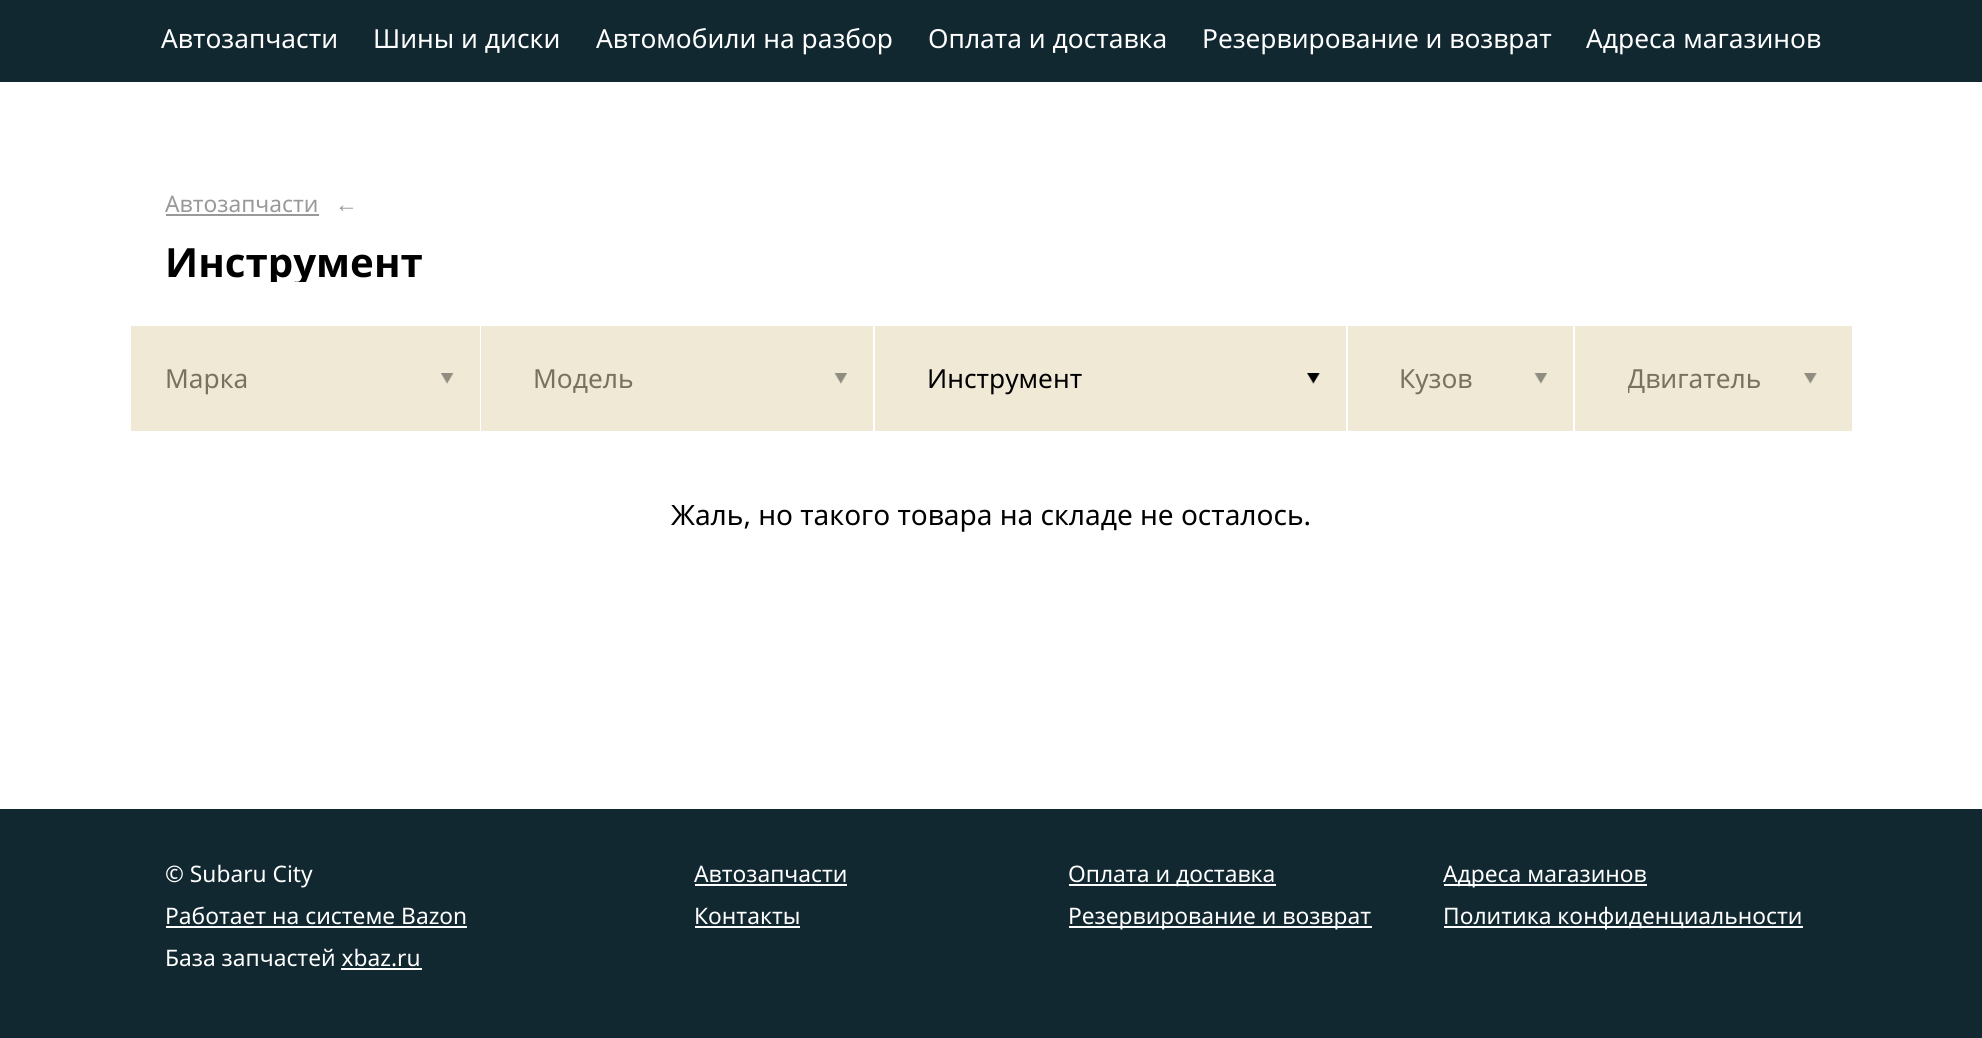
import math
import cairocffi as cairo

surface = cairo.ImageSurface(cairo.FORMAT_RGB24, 1982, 1038)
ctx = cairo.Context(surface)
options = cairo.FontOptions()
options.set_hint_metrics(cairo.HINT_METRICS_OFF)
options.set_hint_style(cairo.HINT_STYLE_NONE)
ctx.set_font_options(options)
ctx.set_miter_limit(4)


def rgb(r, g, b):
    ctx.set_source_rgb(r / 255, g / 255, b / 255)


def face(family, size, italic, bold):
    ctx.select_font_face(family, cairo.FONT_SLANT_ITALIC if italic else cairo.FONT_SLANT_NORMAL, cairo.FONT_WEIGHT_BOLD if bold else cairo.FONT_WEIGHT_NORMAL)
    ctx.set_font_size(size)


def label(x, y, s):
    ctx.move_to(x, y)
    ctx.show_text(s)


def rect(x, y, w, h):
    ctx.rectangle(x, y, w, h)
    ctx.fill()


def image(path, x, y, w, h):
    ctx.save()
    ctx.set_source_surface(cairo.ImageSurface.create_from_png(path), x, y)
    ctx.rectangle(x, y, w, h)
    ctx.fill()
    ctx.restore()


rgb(18, 40, 48)
ctx.paint()
face('Noto Sans', 26.25, 0, 0)
rgb(255, 255, 255)
label(161, 48, 'Автозапчасти')
label(373, 48, 'Шины и диски')
label(596, 48, 'Автомобили на разбор')
label(928, 48, 'Оплата и доставка')
label(1202, 48, 'Резервирование и возврат')
label(1586, 48, 'Адреса магазинов')
rect(0, 82, 1982, 727)
face('Noto Sans', 22.75, 0, 0)
rgb(153, 153, 153)
label(165, 212, 'Автозапчасти')
rect(166, 214, 153, 2)
label(335, 212, '←')
ctx.save()
ctx.rectangle(166, 215, 1652, 67)
ctx.clip()
face('Noto Sans', 40.25, 0, 1)
rgb(0, 0, 0)
label(165, 277, 'Инструмент')
ctx.restore()
rgb(239, 233, 213)
rect(131, 326, 349, 105)
face('Noto Sans', 26.25, 0, 0)
rgb(121, 114, 93)
label(165, 388, 'Марка')
image('image0.png', 441, 373, 13, 11)
rgb(239, 233, 213)
rect(481, 326, 392, 105)
rgb(121, 114, 93)
label(533, 388, 'Модель')
image('image1.png', 834, 373, 13, 11)
rgb(239, 233, 213)
rect(875, 326, 471, 105)
rgb(0, 0, 0)
label(927, 388, 'Инструмент')
image('image2.png', 1307, 373, 13, 11)
rgb(239, 233, 213)
rect(1348, 326, 225, 105)
rgb(121, 114, 93)
label(1399, 388, 'Кузов')
image('image3.png', 1534, 373, 13, 11)
rgb(239, 233, 213)
rect(1575, 326, 277, 105)
ctx.save()
ctx.rectangle(1628, 326, 190, 105)
ctx.clip()
rgb(121, 114, 93)
label(1627, 388, 'Двигатель')
ctx.restore()
gradient = cairo.LinearGradient(1757, 378, 1818, 378)
gradient.add_color_stop_rgba(0, 0.937, 0.914, 0.835, 0)
gradient.add_color_stop_rgba(1, 0.937, 0.914, 0.835, 1)
ctx.set_source(gradient)
rect(1758, 381, 2, 5)
image('image4.png', 1804, 373, 13, 11)
face('Noto Sans', 28, 0, 0)
rgb(0, 0, 0)
label(671, 525, 'Жаль, но такого товара на складе не осталось.')
face('Noto Sans', 22.75, 0, 0)
rgb(255, 255, 255)
label(165, 882, '© Subaru City')
label(165, 924, 'Работает на системе Bazon')
rect(166, 926, 301, 2)
label(165, 966, 'База запчастей xbaz.ru')
rect(341, 968, 81, 2)
label(694, 882, 'Автозапчасти')
rect(695, 884, 152, 2)
label(694, 924, 'Контакты')
rect(695, 926, 105, 2)
rect(1069, 884, 207, 2)
label(1068, 882, 'Оплата и доставка')
rect(1069, 926, 303, 2)
label(1068, 924, 'Резервирование и возврат')
rect(1444, 884, 203, 2)
label(1443, 882, 'Адреса магазинов')
rect(1444, 926, 359, 2)
label(1443, 924, 'Политика конфиденциальности')
surface.write_to_png('render.png')
